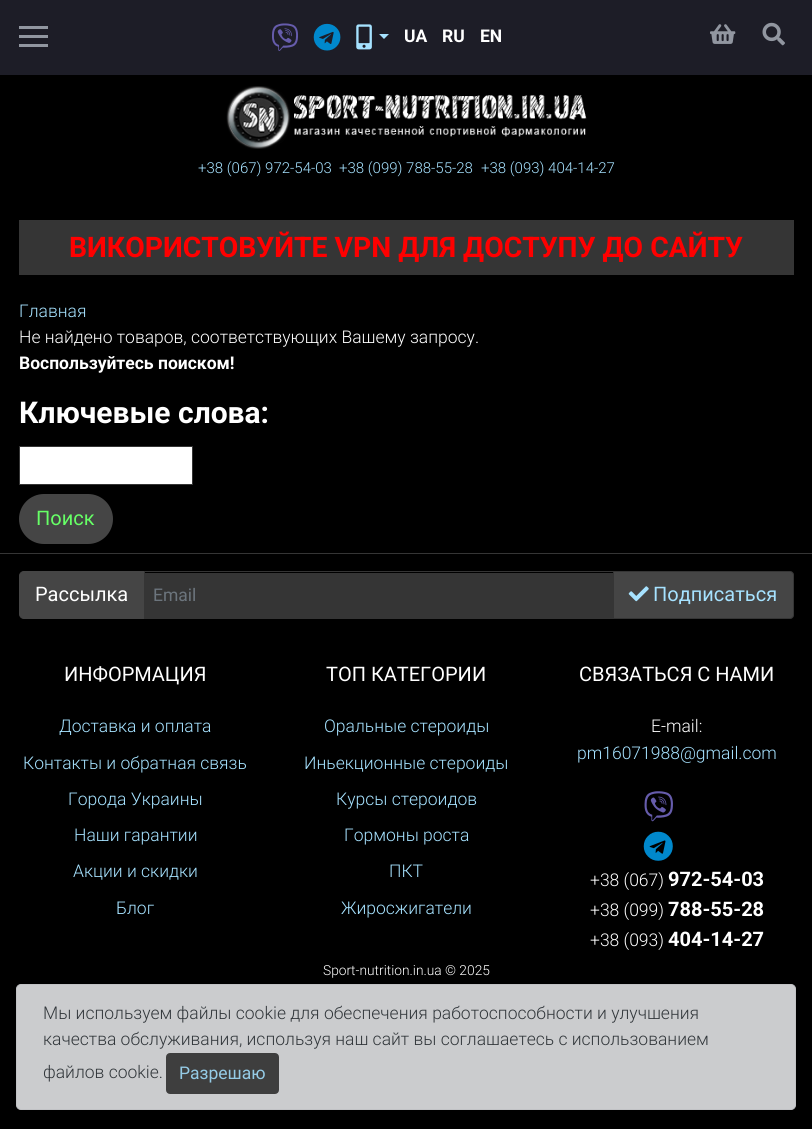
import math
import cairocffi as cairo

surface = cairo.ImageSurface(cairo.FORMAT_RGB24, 812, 1129)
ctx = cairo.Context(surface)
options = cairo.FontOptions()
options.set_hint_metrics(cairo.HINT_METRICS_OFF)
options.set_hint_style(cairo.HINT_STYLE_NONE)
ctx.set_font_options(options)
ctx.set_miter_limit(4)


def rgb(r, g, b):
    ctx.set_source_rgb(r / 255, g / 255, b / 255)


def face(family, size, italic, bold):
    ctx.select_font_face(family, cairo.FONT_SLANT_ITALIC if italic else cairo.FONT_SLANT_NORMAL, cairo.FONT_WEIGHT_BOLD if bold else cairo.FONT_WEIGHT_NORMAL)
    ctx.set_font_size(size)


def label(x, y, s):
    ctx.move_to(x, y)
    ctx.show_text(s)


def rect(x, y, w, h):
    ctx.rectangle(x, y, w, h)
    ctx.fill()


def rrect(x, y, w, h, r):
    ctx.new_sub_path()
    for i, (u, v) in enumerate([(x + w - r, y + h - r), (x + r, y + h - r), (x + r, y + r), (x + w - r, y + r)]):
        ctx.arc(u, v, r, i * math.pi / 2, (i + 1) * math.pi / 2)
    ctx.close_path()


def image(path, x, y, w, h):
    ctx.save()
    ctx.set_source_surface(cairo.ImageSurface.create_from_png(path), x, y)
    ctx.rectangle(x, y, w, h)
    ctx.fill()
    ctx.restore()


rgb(0, 0, 0)
ctx.paint()
rgb(29, 29, 39)
rect(0, 0, 812, 75)
rgb(145, 150, 160)
rect(19, 35, 29, 3)
rect(19, 26, 29, 3)
rect(19, 44, 29, 3)
image('image0.png', 272, 23, 26, 28)
image('image1.png', 313, 23, 28, 28)
image('image2.png', 356, 24, 16, 26)
rgb(166, 226, 255)
ctx.new_path()
ctx.move_to(379, 34)
ctx.line_to(389, 34)
ctx.line_to(384, 39)
ctx.close_path()
ctx.fill()
face('Roboto', 17.5, 0, 1)
rgb(255, 255, 255)
label(404, 42, 'UA')
label(442, 42, 'RU')
label(480, 42, 'EN')
image('image3.png', 710, 24, 26, 20)
image('image4.png', 762, 22, 23, 24)
image('image5.png', 226, 86, 361, 63)
face('Roboto Light', 15, 0, 0)
rgb(166, 226, 255)
label(198, 173, '+38 (067) 972-54-03')
label(339, 173, '+38 (099) 788-55-28')
label(481, 173, '+38 (093) 404-14-27')
rgb(53, 53, 53)
rect(19, 220, 775, 55)
face('Roboto', 28.3, 0, 1)
rgb(255, 0, 0)
label(69, 257, 'ВИКОРИСТОВУЙТЕ VPN ДЛЯ ДОСТУПУ ДО САЙТУ')
face('Roboto Light', 17.5, 0, 0)
rgb(166, 226, 255)
label(19, 317, 'Главная')
rgb(255, 255, 255)
label(19, 343, 'Не найдено товаров, соответствующих Вашему запросу.')
face('Roboto', 17.5, 0, 1)
label(19, 369, 'Воспользуйтесь поиском!')
face('Roboto', 30, 0, 1)
label(19, 423, 'Ключевые слова:')
ctx.rectangle(19.5, 446.5, 173, 38)
ctx.fill_preserve()
rgb(53, 53, 53)
ctx.set_line_width(1)
ctx.stroke()
rgb(69, 69, 69)
rrect(20.5, 495.5, 91, 47, 23.5)
ctx.fill_preserve()
ctx.set_line_width(3)
ctx.stroke()
face('Roboto', 20, 0, 0)
rgb(102, 255, 102)
label(36, 525, 'Поиск')
rgb(53, 53, 53)
rect(0, 553, 812, 1)
rgb(69, 69, 69)
ctx.new_path()
ctx.move_to(24, 571.5)
ctx.line_to(144.5, 571.5)
ctx.line_to(144.5, 618.5)
ctx.line_to(24, 618.5)
ctx.curve_to(21.5, 618.5, 19.5, 616.5, 19.5, 614)
ctx.line_to(19.5, 576)
ctx.curve_to(19.5, 573.5, 21.5, 571.5, 24, 571.5)
ctx.close_path()
ctx.fill_preserve()
ctx.set_line_width(1)
ctx.stroke()
rgb(255, 255, 255)
label(35, 601, 'Рассылка')
rgb(53, 53, 53)
rect(145, 573, 468, 45)
ctx.rectangle(144.5, 571.5, 469, 47)
ctx.stroke()
face('Roboto', 17.5, 0, 0)
rgb(108, 117, 125)
label(153, 601, 'Email')
rgb(69, 69, 69)
ctx.new_path()
ctx.move_to(613.5, 571.5)
ctx.line_to(790, 571.5)
ctx.curve_to(792, 571.5, 793.5, 573, 793.5, 575)
ctx.line_to(793.5, 615)
ctx.curve_to(793.5, 617, 792, 618.5, 790, 618.5)
ctx.line_to(613.5, 618.5)
ctx.close_path()
ctx.fill_preserve()
rgb(53, 53, 53)
ctx.stroke()
image('image6.png', 628, 586, 21, 16)
face('Roboto', 20, 0, 0)
rgb(166, 226, 255)
label(653, 601, 'Подписаться')
rgb(255, 255, 255)
label(64, 681, 'ИНФОРМАЦИЯ')
face('Roboto Light', 17.5, 0, 0)
rgb(166, 226, 255)
label(59, 732, 'Доставка и оплата')
label(23, 769, 'Контакты и обратная связь')
label(68, 805, 'Города Украины')
label(74, 841, 'Наши гарантии')
label(73, 877, 'Акции и скидки')
label(116, 914, 'Блог')
face('Roboto', 20, 0, 0)
rgb(255, 255, 255)
label(326, 681, 'TOП КАТЕГОРИИ')
face('Roboto Light', 17.5, 0, 0)
rgb(166, 226, 255)
label(324, 732, 'Оральные стероиды')
label(304, 769, 'Иньекционные стероиды')
label(336, 805, 'Курсы стероидов')
label(344, 841, 'Гормоны роста')
label(389, 877, 'ПКТ')
label(341, 914, 'Жиросжигатели')
face('Roboto', 20, 0, 0)
rgb(255, 255, 255)
label(579, 681, 'СВЯЗАТЬСЯ С НАМИ')
face('Roboto Light', 17.5, 0, 0)
label(651, 732, 'E-mail:')
rgb(166, 226, 255)
label(577, 759, 'pm16071988@gmail.com')
image('image7.png', 644, 791, 29, 31)
image('image8.png', 643, 831, 30, 30)
rgb(255, 255, 255)
label(590, 886, '+38 (067)')
face('Roboto', 20, 0, 1)
label(668, 886, '972-54-03')
face('Roboto Light', 17.5, 0, 0)
label(590, 916, '+38 (099)')
face('Roboto', 20, 0, 1)
label(668, 916, '788-55-28')
face('Roboto Light', 17.5, 0, 0)
label(590, 946, '+38 (093)')
face('Roboto', 20, 0, 1)
label(668, 946, '404-14-27')
face('Roboto Light', 13.75, 0, 0)
label(323, 975, 'Sport-nutrition.in.ua © 2025')
rgb(203, 204, 206)
rrect(16.5, 984.5, 779, 125, 4.5)
ctx.fill_preserve()
rgb(193, 194, 197)
ctx.stroke()
face('Roboto Light', 17.5, 0, 0)
rgb(50, 55, 59)
label(43, 1019, 'Мы используем файлы cookie для обеспечения работоспособности и улучшения')
label(43, 1045, 'качества обслуживания, используя наш сайт вы соглашаетесь с использованием')
label(43, 1078, 'файлов cookie.')
rgb(62, 62, 62)
rrect(167.5, 1054.5, 110, 38, 2.5)
ctx.fill_preserve()
ctx.set_line_width(3)
ctx.stroke()
face('Roboto', 17.5, 0, 0)
rgb(149, 203, 230)
label(179, 1079, 'Разрешаю')
surface.write_to_png('render.png')
